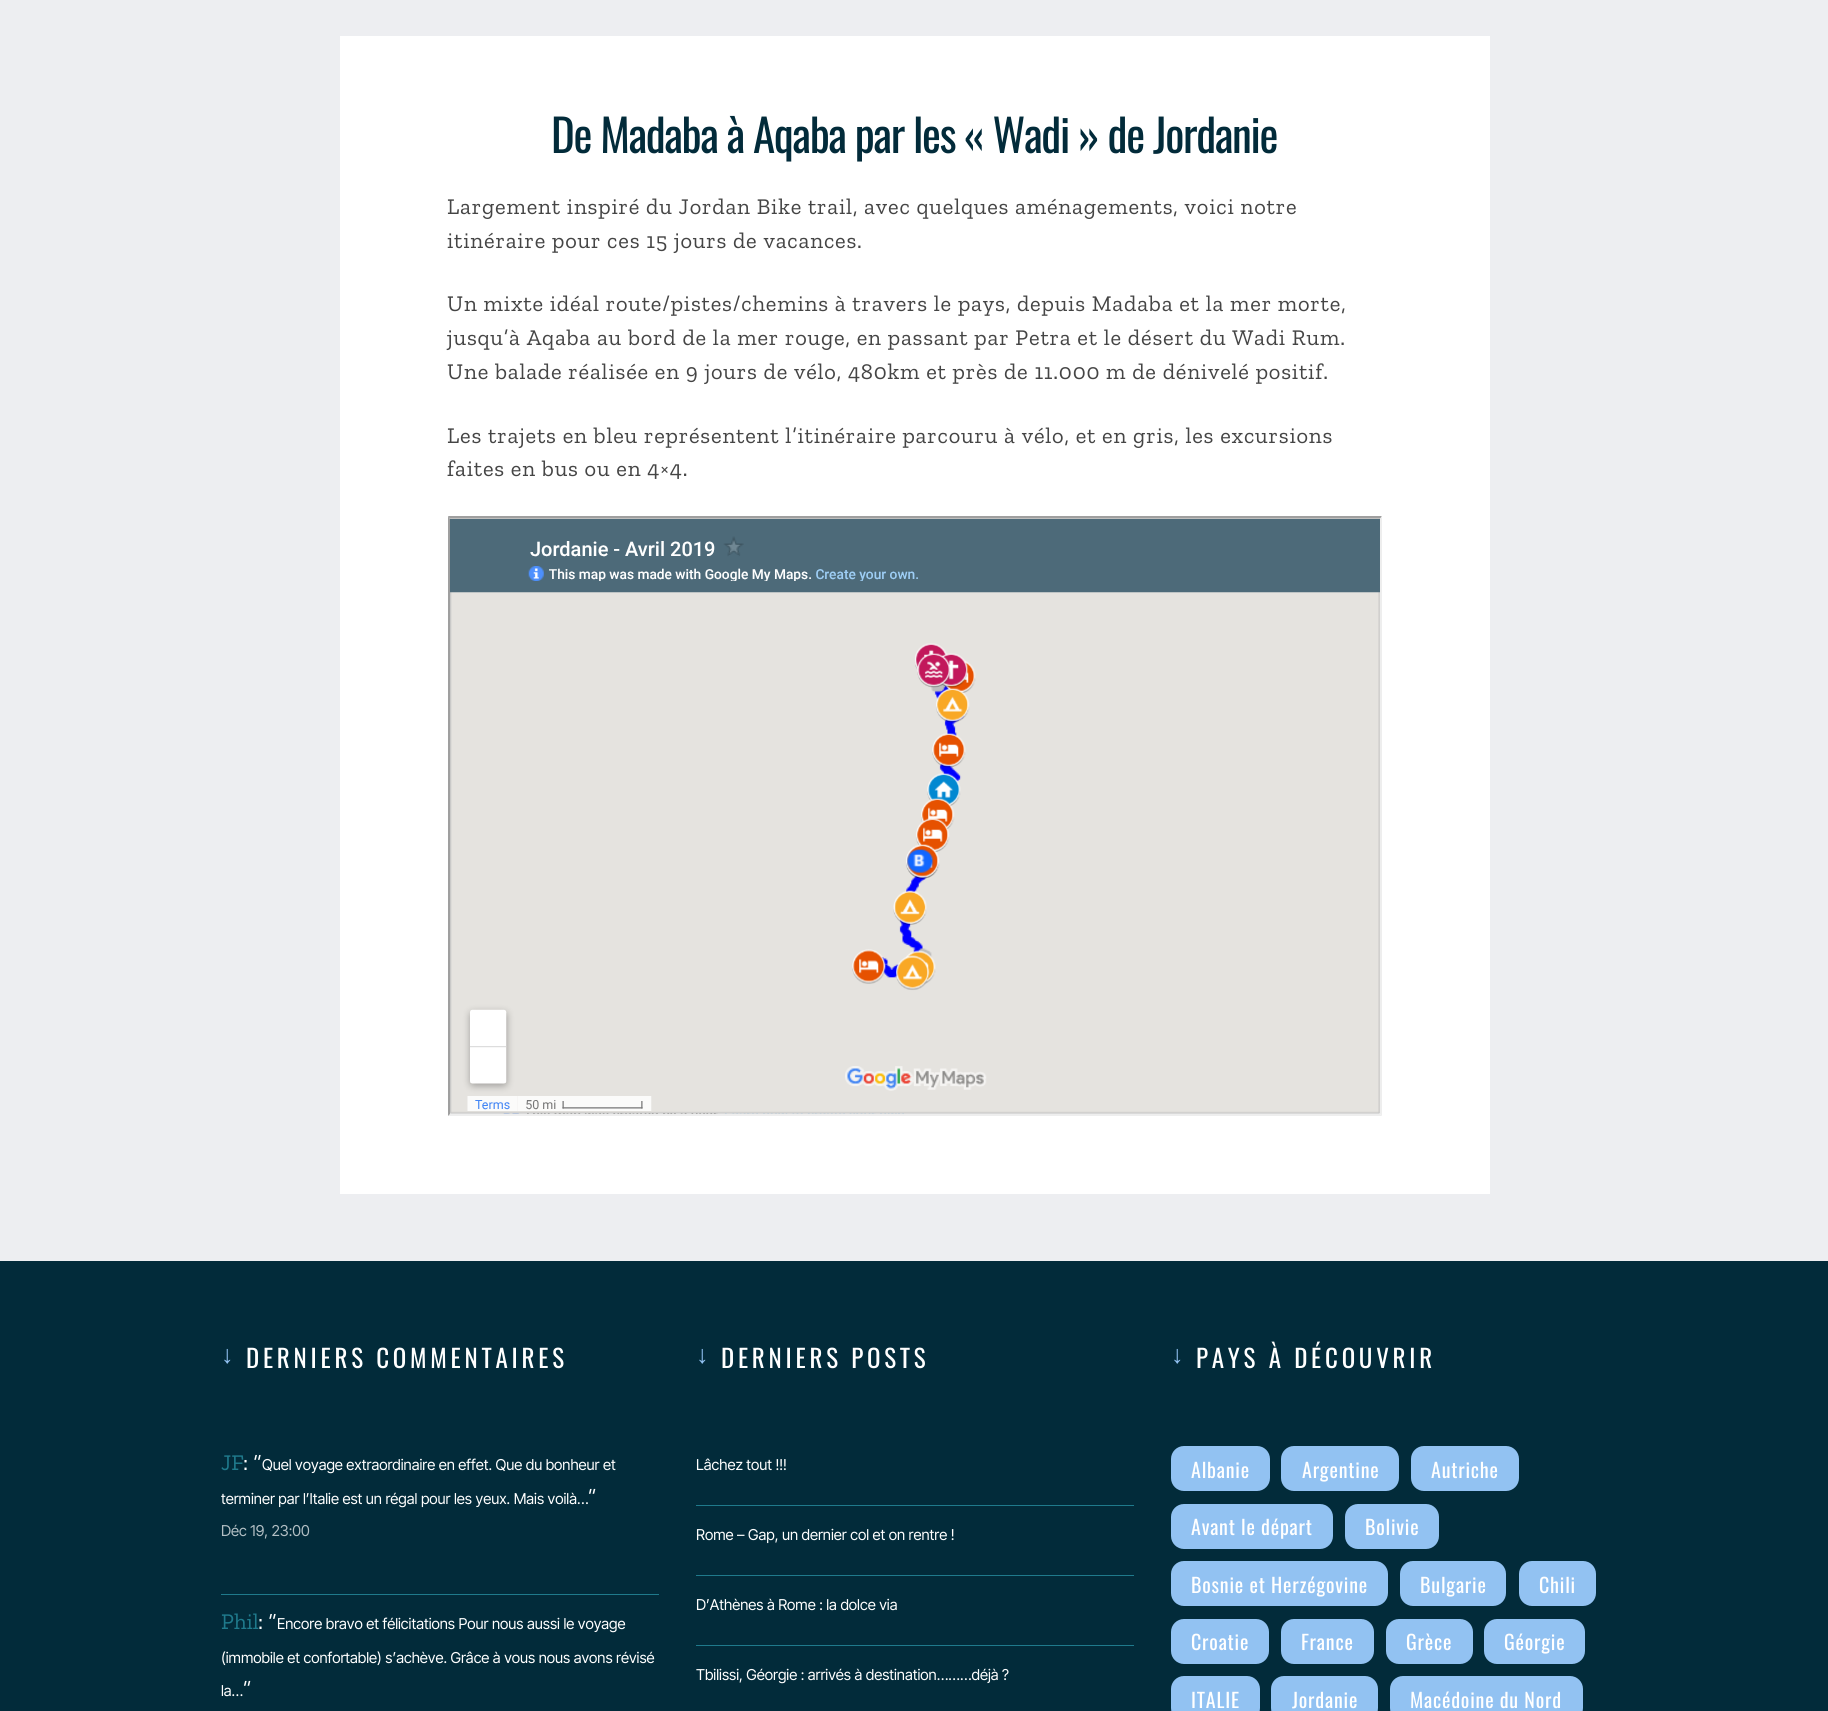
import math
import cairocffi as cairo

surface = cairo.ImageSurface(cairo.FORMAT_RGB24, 1828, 1711)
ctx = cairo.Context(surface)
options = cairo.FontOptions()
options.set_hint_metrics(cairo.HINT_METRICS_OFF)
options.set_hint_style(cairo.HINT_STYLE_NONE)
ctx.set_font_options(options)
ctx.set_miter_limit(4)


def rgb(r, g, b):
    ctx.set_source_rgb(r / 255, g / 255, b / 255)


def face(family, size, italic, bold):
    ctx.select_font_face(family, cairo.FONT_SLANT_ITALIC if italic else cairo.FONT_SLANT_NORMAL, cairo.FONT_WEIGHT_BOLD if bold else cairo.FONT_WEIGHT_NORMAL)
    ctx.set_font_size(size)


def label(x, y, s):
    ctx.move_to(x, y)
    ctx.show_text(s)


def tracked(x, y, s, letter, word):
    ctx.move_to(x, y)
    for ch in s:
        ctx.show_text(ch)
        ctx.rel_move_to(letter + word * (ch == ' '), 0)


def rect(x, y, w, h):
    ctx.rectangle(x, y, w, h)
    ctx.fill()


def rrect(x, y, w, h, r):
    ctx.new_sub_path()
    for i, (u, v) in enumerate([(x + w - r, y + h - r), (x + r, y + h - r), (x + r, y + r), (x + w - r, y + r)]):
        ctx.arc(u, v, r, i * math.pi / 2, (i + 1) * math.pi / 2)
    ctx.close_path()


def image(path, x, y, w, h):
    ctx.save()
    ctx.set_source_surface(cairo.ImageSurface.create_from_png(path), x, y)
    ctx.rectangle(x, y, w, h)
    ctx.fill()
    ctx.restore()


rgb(237, 238, 241)
ctx.paint()
rgb(255, 255, 255)
rect(340, 36, 1150, 1158)
face('Oswald', 45, 0, 0)
rgb(2, 43, 58)
tracked(551, 153, 'De Madaba à Aqaba par les « Wadi » de Jordanie', -1.25, 0)
face('Zilla Slab', 22.5, 0, 0)
rgb(69, 69, 69)
tracked(447, 214, 'Largement inspiré du Jordan Bike trail, avec quelques aménagements, voici notre', 0.8, 0)
tracked(447, 248, 'itinéraire pour ces 15 jours de vacances.', 0.8, 0)
tracked(447, 311, 'Un mixte idéal route/pistes/chemins à travers le pays, depuis Madaba et la mer morte,', 0.8, 0)
tracked(447, 345, 'jusqu’à Aqaba au bord de la mer rouge, en passant par Petra et le désert du Wadi Rum.', 0.8, 0)
tracked(447, 379, 'Une balade réalisée en 9 jours de vélo, 480km et près de 11.000 m de dénivelé positif.', 0.8, 0)
tracked(447, 443, 'Les trajets en bleu représentent l’itinéraire parcouru à vélo, et en gris, les excursions', 0.8, 0)
tracked(447, 476, 'faites en bus ou en 4×4.', 0.8, 0)
rgb(159, 159, 159)
ctx.new_path()
ctx.move_to(448, 516)
ctx.line_to(1382, 516)
ctx.line_to(1380, 519)
ctx.line_to(450, 519)
ctx.close_path()
ctx.fill()
rgb(238, 238, 238)
ctx.new_path()
ctx.move_to(1382, 516)
ctx.line_to(1382, 1116)
ctx.line_to(1380, 1114)
ctx.line_to(1380, 519)
ctx.close_path()
ctx.fill()
ctx.new_path()
ctx.move_to(1382, 1116)
ctx.line_to(448, 1116)
ctx.line_to(450, 1114)
ctx.line_to(1380, 1114)
ctx.close_path()
ctx.fill()
rgb(159, 159, 159)
ctx.new_path()
ctx.move_to(448, 1116)
ctx.line_to(448, 516)
ctx.line_to(450, 519)
ctx.line_to(450, 1114)
ctx.close_path()
ctx.fill()
image('image0.png', 450, 518, 930, 596)
rgb(2, 43, 58)
rect(0, 1261, 1828, 450)
face('Liberation Sans', 25, 0, 0)
rgb(146, 194, 242)
tracked(221, 1363, '↓', 3.75, 0)
face('Oswald', 25, 0, 0)
rgb(255, 255, 255)
tracked(246, 1368, 'DERNIERS COMMENTAIRES', 3.75, 0)
rgb(31, 122, 140)
rect(221, 1594, 438, 1)
face('Zilla Slab', 22.5, 0, 0)
label(221, 1470, 'JF')
rgb(255, 255, 255)
label(243, 1470, ': “')
face('Inter Tight', 15, 0, 0)
label(262, 1470, 'Quel voyage extraordinaire en effet. Que du bonheur et')
face('Zilla Slab', 22.5, 0, 0)
label(588, 1504, '”')
face('Inter Tight', 15, 0, 0)
label(221, 1504, 'terminer par l’Italie est un régal pour les yeux. Mais voilà…')
rgb(179, 191, 196)
label(221, 1536, 'Déc 19, 23:00')
face('Zilla Slab', 22.5, 0, 0)
rgb(31, 122, 140)
label(221, 1629, 'Phil')
rgb(255, 255, 255)
label(258, 1629, ': “')
face('Inter Tight', 15, 0, 0)
label(277, 1629, 'Encore bravo et félicitations Pour nous aussi le voyage')
label(221, 1663, '(immobile et confortable) s’achève. Grâce à vous nous avons révisé')
face('Zilla Slab', 22.5, 0, 0)
label(243, 1696, '”')
face('Inter Tight', 15, 0, 0)
label(221, 1696, 'la…')
face('Liberation Sans', 25, 0, 0)
rgb(146, 194, 242)
tracked(696, 1363, '↓', 3.75, 0)
face('Oswald', 25, 0, 0)
rgb(255, 255, 255)
tracked(721, 1368, 'DERNIERS POSTS', 3.75, 0)
rgb(31, 122, 140)
rect(696, 1505, 438, 1)
face('Inter Tight', 15, 0, 0)
rgb(255, 255, 255)
label(696, 1470, 'Lâchez tout !!!')
rgb(31, 122, 140)
rect(696, 1575, 438, 1)
rgb(255, 255, 255)
label(696, 1540, 'Rome – Gap, un dernier col et on rentre !')
rgb(31, 122, 140)
rect(696, 1645, 438, 1)
rgb(255, 255, 255)
label(696, 1610, 'D’Athènes à Rome : la dolce via')
label(696, 1680, 'Tbilissi, Géorgie : arrivés à destination………déjà ?')
face('Liberation Sans', 25, 0, 0)
rgb(146, 194, 242)
tracked(1171, 1363, '↓', 3.75, 0)
face('Oswald', 25, 0, 0)
rgb(255, 255, 255)
tracked(1196, 1368, 'PAYS À DÉCOUVRIR', 3.75, 0)
rgb(146, 194, 242)
rrect(1171, 1446, 99, 45, 13)
ctx.fill()
face('Oswald', 20, 0, 0)
rgb(255, 255, 255)
tracked(1191, 1478, 'Albanie', 0.8, 0)
rgb(146, 194, 242)
rrect(1281, 1446, 118, 45, 13)
ctx.fill()
rgb(255, 255, 255)
tracked(1302, 1478, 'Argentine', 0.8, 0)
rgb(146, 194, 242)
rrect(1411, 1446, 108, 45, 13)
ctx.fill()
rgb(255, 255, 255)
tracked(1431, 1478, 'Autriche', 0.8, 0)
rgb(146, 194, 242)
rrect(1171, 1504, 162, 45, 13)
ctx.fill()
rgb(255, 255, 255)
tracked(1191, 1535, 'Avant le départ', 0.8, 0)
rgb(146, 194, 242)
rrect(1345, 1504, 94, 45, 13)
ctx.fill()
rgb(255, 255, 255)
tracked(1365, 1535, 'Bolivie', 0.8, 0)
rgb(146, 194, 242)
rrect(1171, 1561, 217, 45, 13)
ctx.fill()
rgb(255, 255, 255)
tracked(1191, 1593, 'Bosnie et Herzégovine', 0.8, 0)
rgb(146, 194, 242)
rrect(1400, 1561, 106, 45, 13)
ctx.fill()
rgb(255, 255, 255)
tracked(1420, 1593, 'Bulgarie', 0.8, 0)
rgb(146, 194, 242)
rrect(1519, 1561, 77, 45, 13)
ctx.fill()
rgb(255, 255, 255)
tracked(1539, 1593, 'Chili', 0.8, 0)
rgb(146, 194, 242)
rrect(1171, 1619, 98, 45, 13)
ctx.fill()
rgb(255, 255, 255)
tracked(1191, 1650, 'Croatie', 0.8, 0)
rgb(146, 194, 242)
rrect(1281, 1619, 93, 45, 13)
ctx.fill()
rgb(255, 255, 255)
tracked(1301, 1650, 'France', 0.8, 0)
rgb(146, 194, 242)
rrect(1386, 1619, 87, 45, 13)
ctx.fill()
rgb(255, 255, 255)
tracked(1406, 1650, 'Grèce', 0.8, 0)
rgb(146, 194, 242)
rrect(1484, 1619, 101, 45, 13)
ctx.fill()
rgb(255, 255, 255)
tracked(1504, 1650, 'Géorgie', 0.8, 0)
rgb(146, 194, 242)
rrect(1171, 1676, 89, 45, 13)
ctx.fill()
rgb(255, 255, 255)
tracked(1191, 1708, 'ITALIE', 0.8, 0)
rgb(146, 194, 242)
rrect(1271, 1676, 107, 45, 13)
ctx.fill()
rgb(255, 255, 255)
tracked(1292, 1708, 'Jordanie', 0.8, 0)
rgb(146, 194, 242)
rrect(1390, 1676, 193, 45, 13)
ctx.fill()
rgb(255, 255, 255)
tracked(1410, 1708, 'Macédoine du Nord', 0.8, 0)
surface.write_to_png('render.png')
